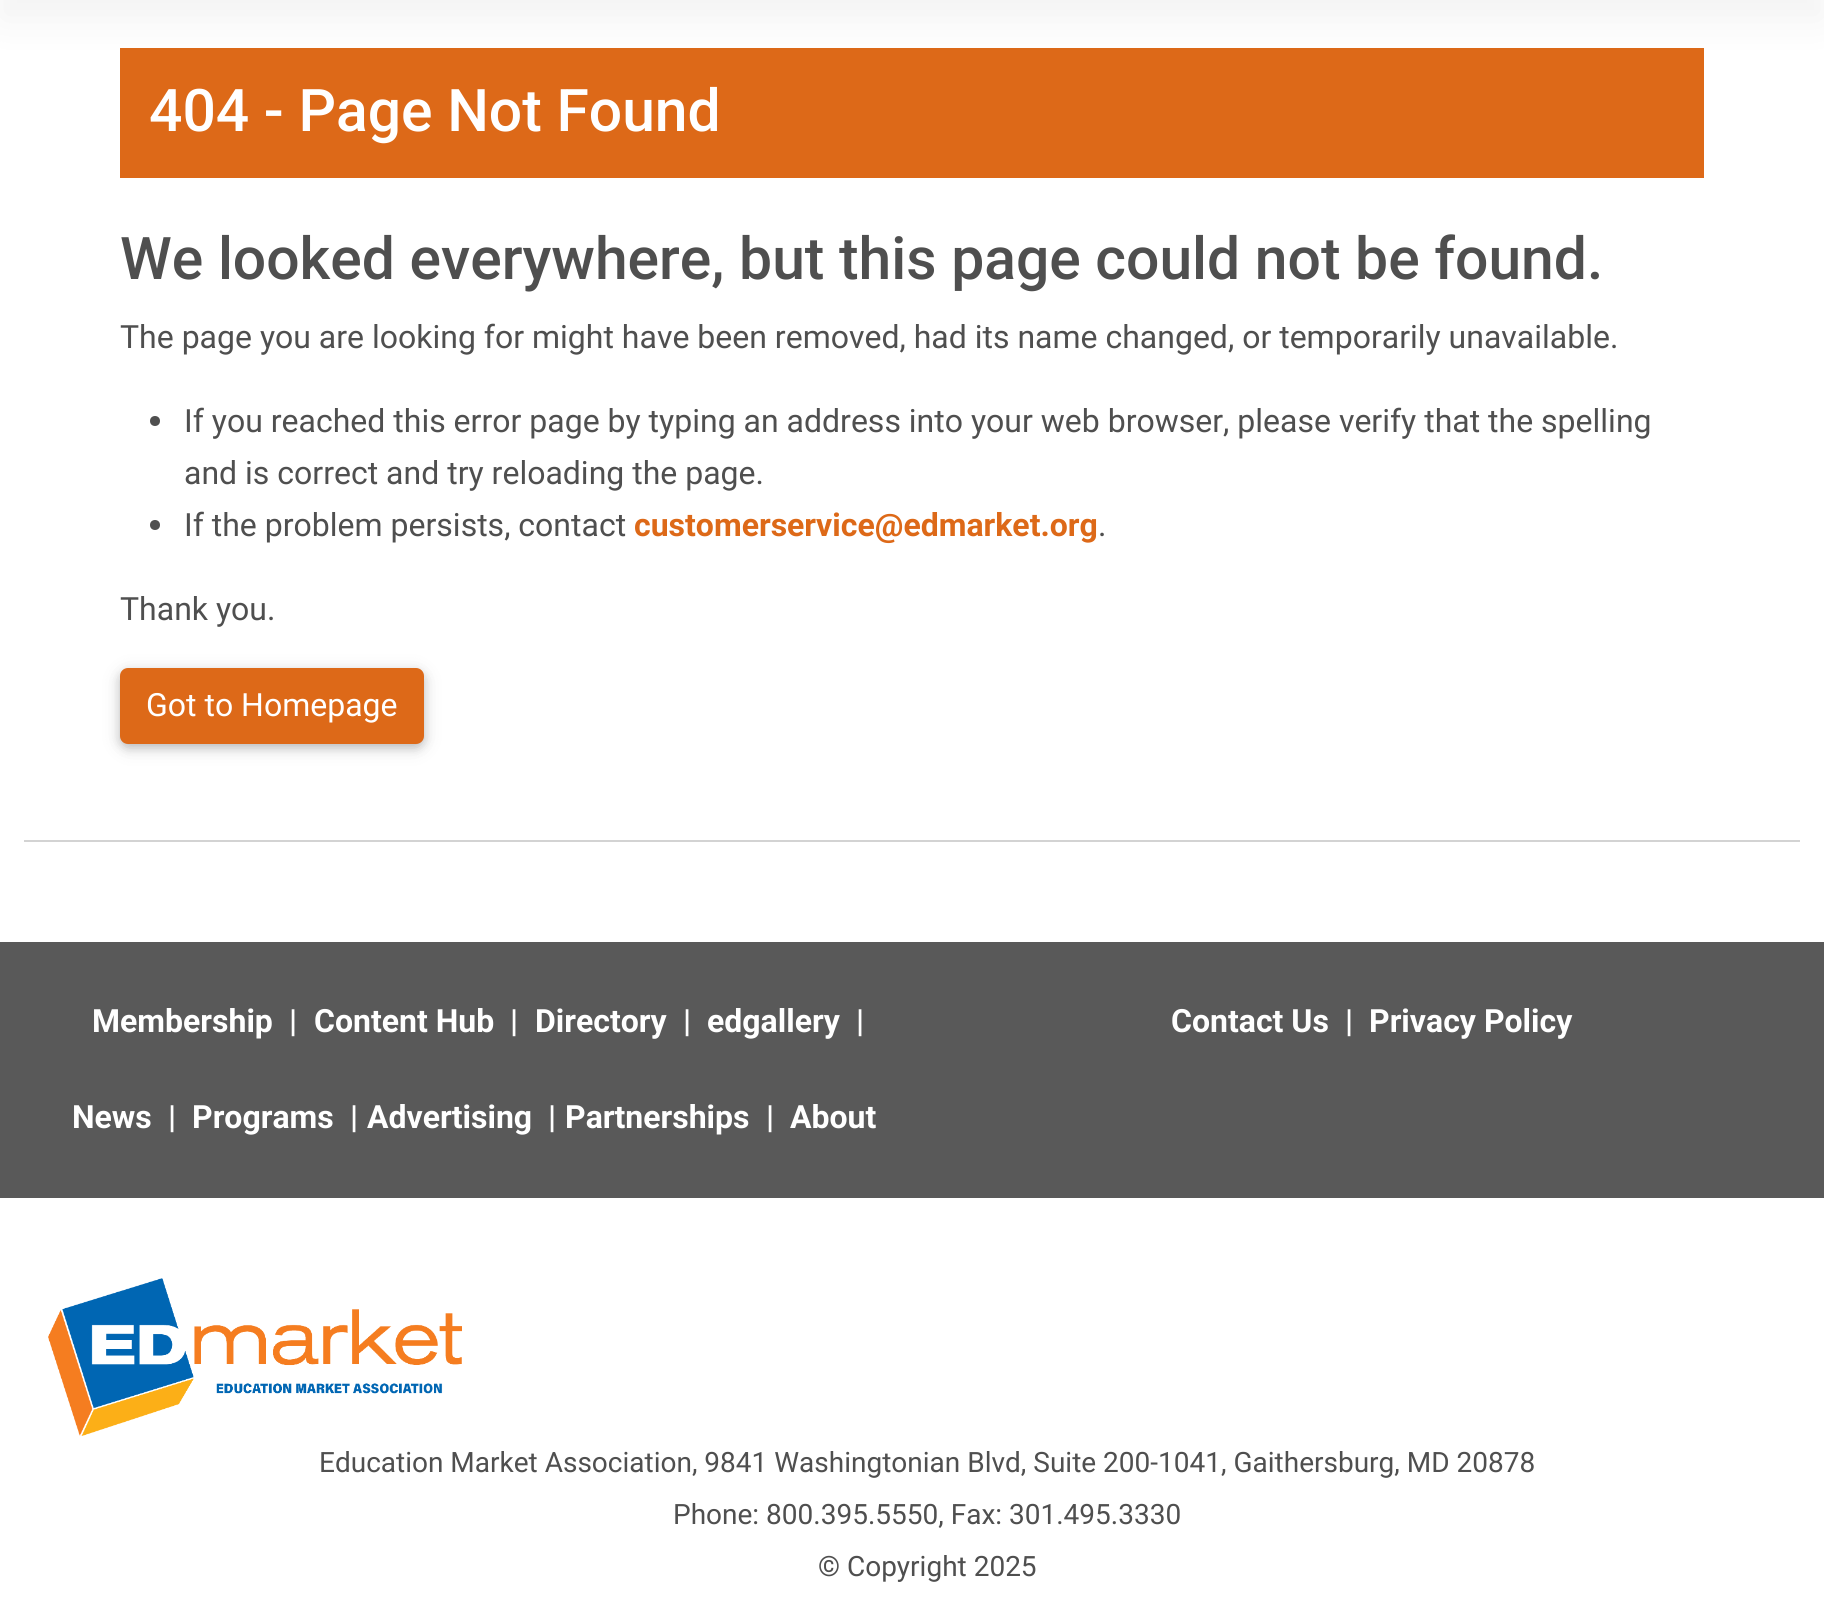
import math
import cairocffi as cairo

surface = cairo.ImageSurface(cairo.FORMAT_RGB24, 1824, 1610)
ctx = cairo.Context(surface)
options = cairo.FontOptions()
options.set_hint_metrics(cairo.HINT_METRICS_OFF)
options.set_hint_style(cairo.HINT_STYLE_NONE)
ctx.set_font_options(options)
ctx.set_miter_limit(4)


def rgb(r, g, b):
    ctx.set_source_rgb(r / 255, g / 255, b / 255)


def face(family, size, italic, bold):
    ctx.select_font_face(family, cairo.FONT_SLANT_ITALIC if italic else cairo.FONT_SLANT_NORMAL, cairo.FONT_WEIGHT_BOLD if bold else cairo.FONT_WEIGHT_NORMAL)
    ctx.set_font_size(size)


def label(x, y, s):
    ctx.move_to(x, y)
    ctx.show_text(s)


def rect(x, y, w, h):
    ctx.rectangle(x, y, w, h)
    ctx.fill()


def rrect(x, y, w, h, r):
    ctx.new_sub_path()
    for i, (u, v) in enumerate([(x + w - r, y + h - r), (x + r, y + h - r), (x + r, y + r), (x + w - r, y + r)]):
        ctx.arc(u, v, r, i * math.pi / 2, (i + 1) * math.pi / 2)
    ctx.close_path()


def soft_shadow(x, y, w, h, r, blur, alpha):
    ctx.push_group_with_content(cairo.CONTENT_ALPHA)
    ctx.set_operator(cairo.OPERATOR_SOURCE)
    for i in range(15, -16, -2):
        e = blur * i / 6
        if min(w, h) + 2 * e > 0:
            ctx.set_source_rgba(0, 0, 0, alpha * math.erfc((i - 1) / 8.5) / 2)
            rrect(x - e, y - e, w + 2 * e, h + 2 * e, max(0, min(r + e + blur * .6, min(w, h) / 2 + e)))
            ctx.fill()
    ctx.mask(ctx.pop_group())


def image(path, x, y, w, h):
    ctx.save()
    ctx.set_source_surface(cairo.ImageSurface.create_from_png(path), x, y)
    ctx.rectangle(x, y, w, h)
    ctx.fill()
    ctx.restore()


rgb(255, 255, 255)
ctx.paint()
rgb(221, 105, 24)
rect(120, 48, 1584, 130)
rgb(0, 0, 0)
soft_shadow(0, -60, 1824, 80, 0, 20, 0.05)
face('Roboto Medium', 58.8, 0, 0)
rgb(255, 255, 255)
label(149, 131, '404 - Page Not Found')
rgb(79, 79, 79)
label(120, 279, 'We looked everywhere, but this page could not be found.')
face('Roboto', 32, 0, 0)
label(120, 348, 'The page you are looking for might have been removed, had its name changed, or temporarily unavailable.')
ctx.new_path()
ctx.arc(155, 421, 5, 0, 2 * math.pi)
ctx.fill()
label(184, 432, 'If you reached this error page by typing an address into your web browser, please verify that the spelling')
label(184, 484, 'and is correct and try reloading the page.')
ctx.new_path()
ctx.arc(155, 525, 5, 0, 2 * math.pi)
ctx.fill()
label(184, 536, 'If the problem persists, contact')
face('Roboto', 32, 0, 1)
rgb(221, 105, 24)
label(634, 536, 'customerservice@edmarket.org')
face('Roboto', 32, 0, 0)
rgb(79, 79, 79)
label(1098, 536, '.')
label(120, 620, 'Thank you.')
rgb(0, 0, 0)
soft_shadow(120, 672, 304, 76, 8, 10, 0.1)
soft_shadow(120, 672, 304, 76, 8, 5, 0.2)
rgb(221, 105, 24)
rrect(121, 669, 302, 74, 7)
ctx.fill_preserve()
ctx.stroke()
rgb(255, 255, 255)
label(146, 716, 'Got to Homepage')
rgb(211, 211, 211)
rect(24, 840, 1776, 2)
rgb(89, 89, 89)
rect(0, 942, 1824, 256)
face('Roboto', 32, 0, 1)
rgb(255, 255, 255)
label(92, 1032, 'Membership')
label(289, 1032, '|')
label(314, 1032, 'Content Hub')
label(510, 1032, '|')
label(535, 1032, 'Directory')
label(683, 1032, '|')
label(707, 1032, 'edgallery')
label(856, 1032, '|')
label(72, 1128, 'News')
label(168, 1128, '|')
label(192, 1128, 'Programs')
label(350, 1128, '|')
label(367, 1128, 'Advertising')
label(548, 1128, '|')
label(565, 1128, 'Partnerships')
label(766, 1128, '|')
label(790, 1128, 'About')
label(1171, 1032, 'Contact Us')
label(1345, 1032, '|')
label(1369, 1032, 'Privacy Policy')
image('image0.png', 48, 1278, 414, 158)
face('Roboto', 28, 0, 0)
rgb(79, 79, 79)
label(319, 1472, 'Education Market Association, 9841 Washingtonian Blvd, Suite 200-1041, Gaithersburg, MD 20878')
label(673, 1524, 'Phone: 800.395.5550, Fax: 301.495.3330')
label(818, 1576, '© Copyright 2025')
surface.write_to_png('render.png')
